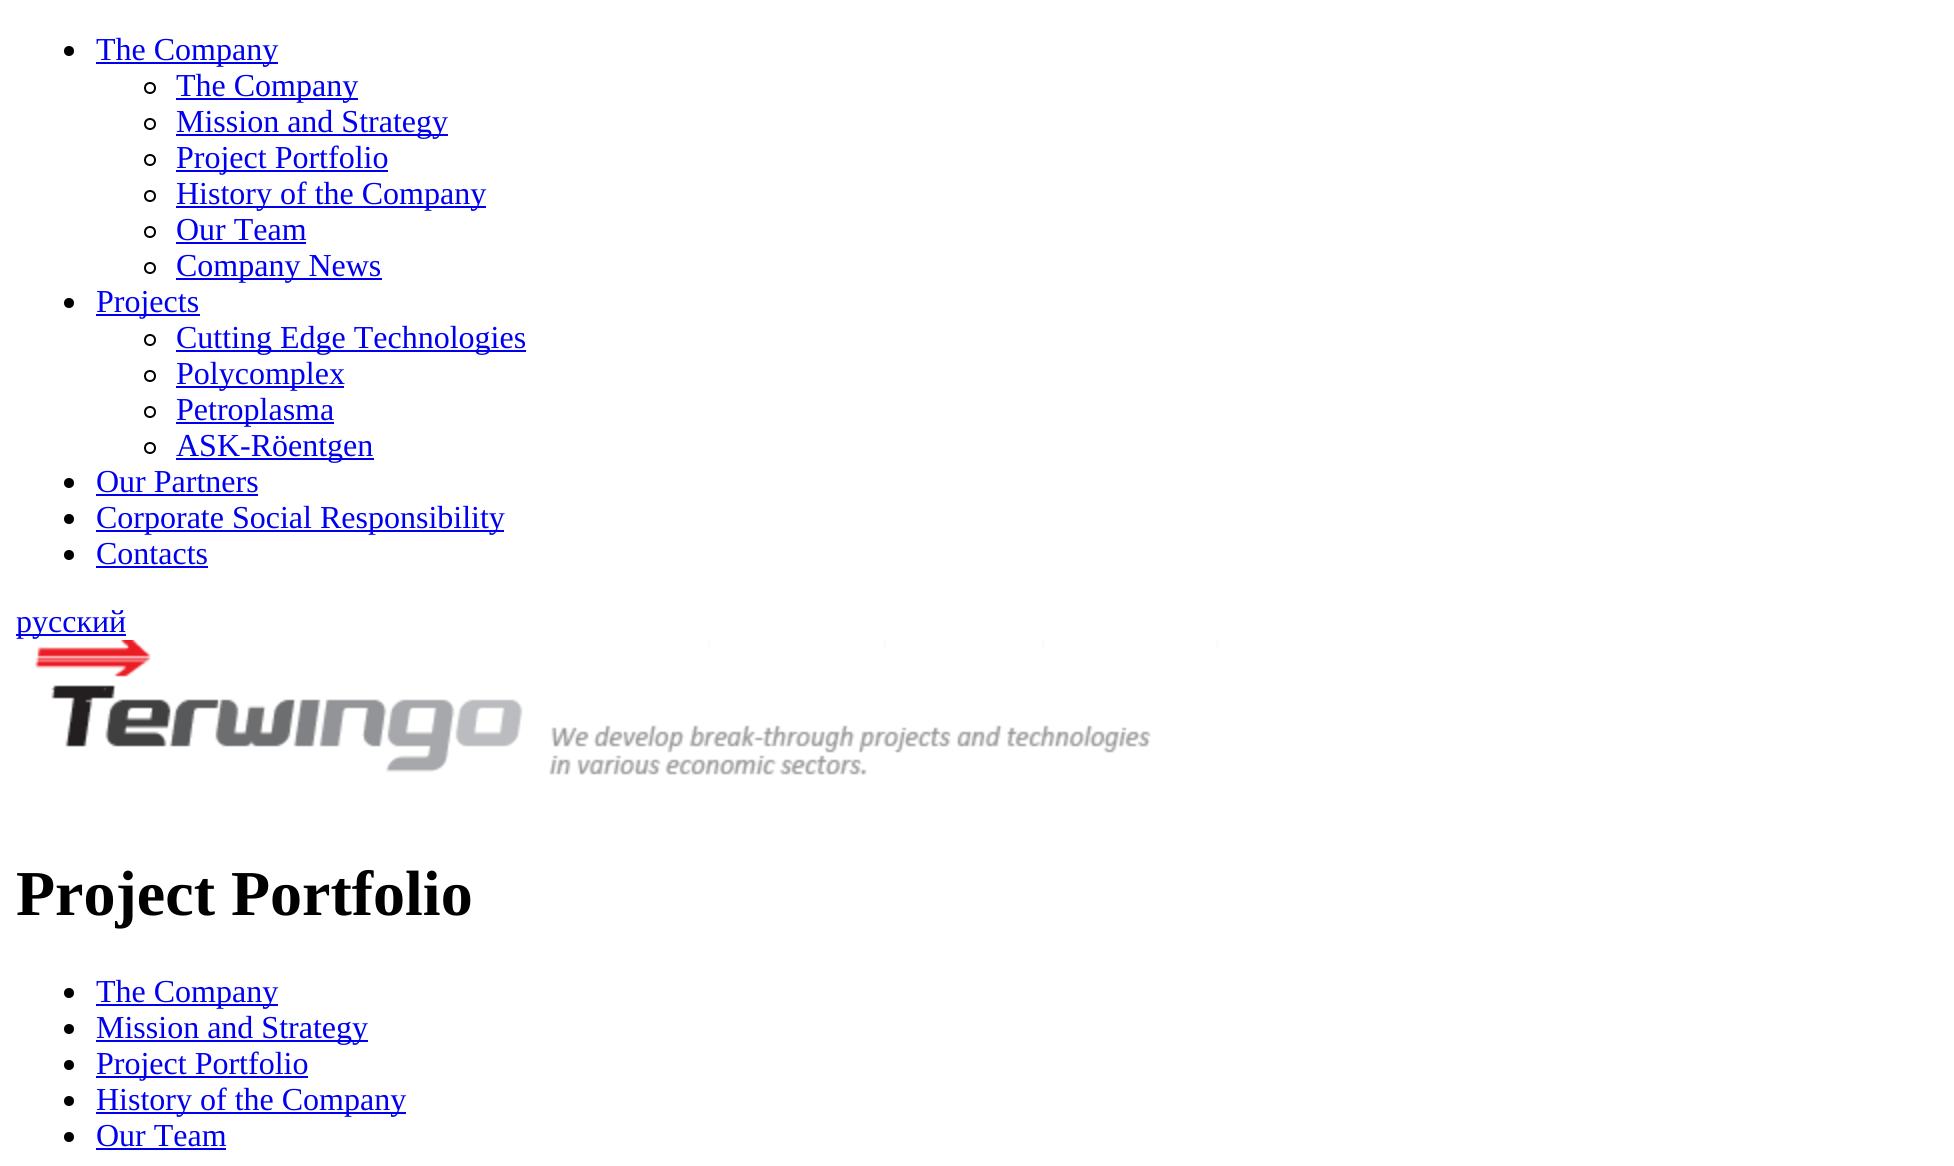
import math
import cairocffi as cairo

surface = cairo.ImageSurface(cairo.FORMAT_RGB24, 1954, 1166)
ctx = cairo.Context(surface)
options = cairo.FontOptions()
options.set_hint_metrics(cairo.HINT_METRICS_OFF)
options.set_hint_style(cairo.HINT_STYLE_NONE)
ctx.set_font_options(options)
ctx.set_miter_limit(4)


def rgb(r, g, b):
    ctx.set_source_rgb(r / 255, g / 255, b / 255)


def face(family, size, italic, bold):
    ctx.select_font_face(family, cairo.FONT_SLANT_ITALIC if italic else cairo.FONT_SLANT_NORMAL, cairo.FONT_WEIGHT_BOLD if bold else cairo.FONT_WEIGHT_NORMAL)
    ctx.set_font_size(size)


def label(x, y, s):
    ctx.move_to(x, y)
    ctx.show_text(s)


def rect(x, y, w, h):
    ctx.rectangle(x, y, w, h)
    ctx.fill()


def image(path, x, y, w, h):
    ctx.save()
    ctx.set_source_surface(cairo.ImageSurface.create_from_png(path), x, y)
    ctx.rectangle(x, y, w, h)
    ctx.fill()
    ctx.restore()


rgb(255, 255, 255)
ctx.paint()
rgb(0, 0, 0)
ctx.arc(69, 51, 5, 0, 2 * math.pi)
ctx.fill()
rgb(0, 0, 238)
rect(96, 62, 182, 2)
face('Liberation Serif', 32, 0, 0)
label(96, 60, 'The Company')
ctx.new_path()
ctx.arc(150, 88, 5, 0, 2 * math.pi)
rgb(0, 0, 0)
ctx.stroke()
rgb(0, 0, 238)
rect(176, 98, 182, 2)
label(176, 96, 'The Company')
ctx.new_path()
ctx.arc(150, 124, 5, 0, 2 * math.pi)
rgb(0, 0, 0)
ctx.stroke()
rgb(0, 0, 238)
rect(176, 134, 272, 2)
label(176, 132, 'Mission and Strategy')
ctx.new_path()
ctx.arc(150, 160, 5, 0, 2 * math.pi)
rgb(0, 0, 0)
ctx.stroke()
rgb(0, 0, 238)
rect(176, 170, 212, 2)
label(176, 168, 'Project Portfolio')
ctx.new_path()
ctx.arc(150, 196, 5, 0, 2 * math.pi)
rgb(0, 0, 0)
ctx.stroke()
rgb(0, 0, 238)
rect(176, 206, 310, 2)
label(176, 204, 'History of the Company')
ctx.new_path()
ctx.arc(150, 232, 5, 0, 2 * math.pi)
rgb(0, 0, 0)
ctx.stroke()
rgb(0, 0, 238)
label(176, 240, 'Our Team')
rect(176, 242, 130, 2)
ctx.new_path()
ctx.arc(150, 268, 5, 0, 2 * math.pi)
rgb(0, 0, 0)
ctx.stroke()
rgb(0, 0, 238)
rect(176, 278, 206, 2)
label(176, 276, 'Company News')
rgb(0, 0, 0)
ctx.new_path()
ctx.arc(69, 303, 5, 0, 2 * math.pi)
ctx.fill()
rgb(0, 0, 238)
rect(96, 314, 104, 2)
label(96, 312, 'Projects')
ctx.new_path()
ctx.arc(150, 340, 5, 0, 2 * math.pi)
rgb(0, 0, 0)
ctx.stroke()
rgb(0, 0, 238)
rect(176, 350, 350, 2)
label(176, 348, 'Cutting Edge Technologies')
ctx.new_path()
ctx.arc(150, 376, 5, 0, 2 * math.pi)
rgb(0, 0, 0)
ctx.stroke()
rgb(0, 0, 238)
rect(176, 386, 168, 2)
label(176, 384, 'Polycomplex')
ctx.new_path()
ctx.arc(150, 412, 5, 0, 2 * math.pi)
rgb(0, 0, 0)
ctx.stroke()
rgb(0, 0, 238)
rect(176, 422, 158, 2)
label(176, 420, 'Petroplasma')
ctx.new_path()
ctx.arc(150, 448, 5, 0, 2 * math.pi)
rgb(0, 0, 0)
ctx.stroke()
rgb(0, 0, 238)
rect(176, 458, 198, 2)
label(176, 456, 'ASK-Röentgen')
rgb(0, 0, 0)
ctx.new_path()
ctx.arc(69, 483, 5, 0, 2 * math.pi)
ctx.fill()
rgb(0, 0, 238)
label(96, 492, 'Our Partners')
rect(96, 494, 162, 2)
rgb(0, 0, 0)
ctx.new_path()
ctx.arc(69, 519, 5, 0, 2 * math.pi)
ctx.fill()
rgb(0, 0, 238)
rect(96, 530, 408, 2)
label(96, 528, 'Corporate Social Responsibility')
rgb(0, 0, 0)
ctx.new_path()
ctx.arc(69, 555, 5, 0, 2 * math.pi)
ctx.fill()
rgb(0, 0, 238)
label(96, 564, 'Contacts')
rect(96, 566, 112, 2)
rect(16, 634, 110, 2)
label(16, 632, 'русский')
image('image0.png', 35, 640, 1183, 135)
face('Liberation Serif', 64, 0, 1)
rgb(0, 0, 0)
label(16, 915, 'Project Portfolio')
ctx.new_path()
ctx.arc(69, 993, 5, 0, 2 * math.pi)
ctx.fill()
rgb(0, 0, 238)
rect(96, 1004, 182, 2)
face('Liberation Serif', 32, 0, 0)
label(96, 1002, 'The Company')
rgb(0, 0, 0)
ctx.new_path()
ctx.arc(69, 1029, 5, 0, 2 * math.pi)
ctx.fill()
rgb(0, 0, 238)
rect(96, 1040, 272, 2)
label(96, 1038, 'Mission and Strategy')
rgb(0, 0, 0)
ctx.new_path()
ctx.arc(69, 1065, 5, 0, 2 * math.pi)
ctx.fill()
rgb(0, 0, 238)
rect(96, 1076, 212, 2)
label(96, 1074, 'Project Portfolio')
rgb(0, 0, 0)
ctx.new_path()
ctx.arc(69, 1101, 5, 0, 2 * math.pi)
ctx.fill()
rgb(0, 0, 238)
rect(96, 1112, 310, 2)
label(96, 1110, 'History of the Company')
rgb(0, 0, 0)
ctx.new_path()
ctx.arc(69, 1137, 5, 0, 2 * math.pi)
ctx.fill()
rgb(0, 0, 238)
label(96, 1146, 'Our Team')
rect(96, 1148, 130, 2)
surface.write_to_png('render.png')
